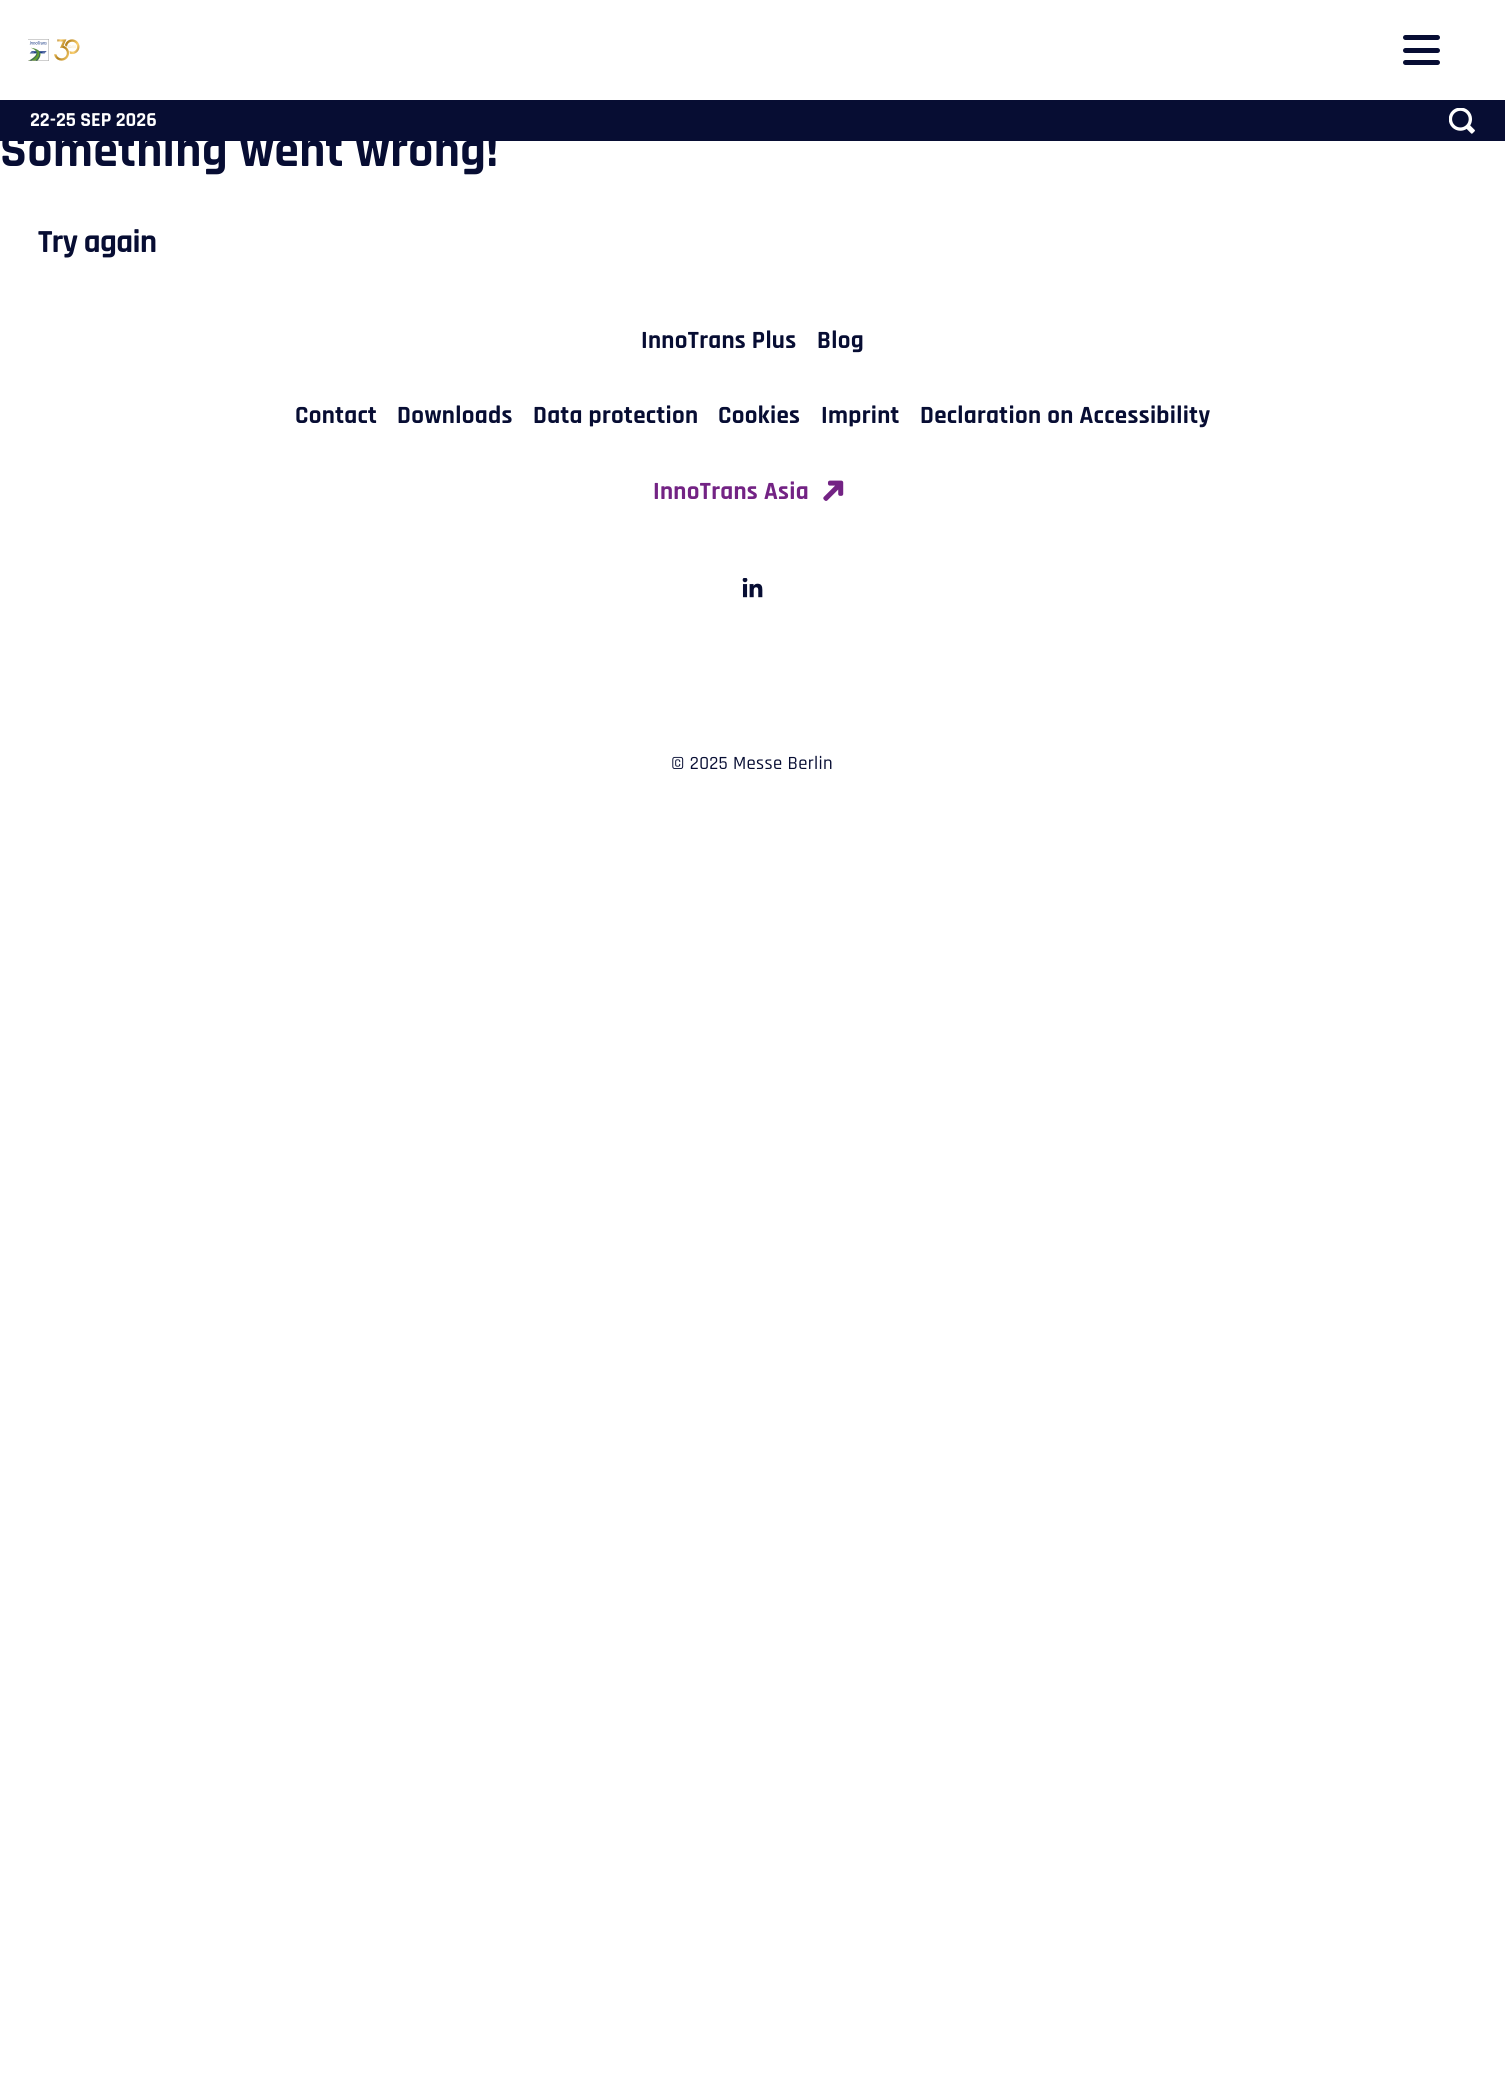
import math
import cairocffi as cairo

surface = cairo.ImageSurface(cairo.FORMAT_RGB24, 1505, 2082)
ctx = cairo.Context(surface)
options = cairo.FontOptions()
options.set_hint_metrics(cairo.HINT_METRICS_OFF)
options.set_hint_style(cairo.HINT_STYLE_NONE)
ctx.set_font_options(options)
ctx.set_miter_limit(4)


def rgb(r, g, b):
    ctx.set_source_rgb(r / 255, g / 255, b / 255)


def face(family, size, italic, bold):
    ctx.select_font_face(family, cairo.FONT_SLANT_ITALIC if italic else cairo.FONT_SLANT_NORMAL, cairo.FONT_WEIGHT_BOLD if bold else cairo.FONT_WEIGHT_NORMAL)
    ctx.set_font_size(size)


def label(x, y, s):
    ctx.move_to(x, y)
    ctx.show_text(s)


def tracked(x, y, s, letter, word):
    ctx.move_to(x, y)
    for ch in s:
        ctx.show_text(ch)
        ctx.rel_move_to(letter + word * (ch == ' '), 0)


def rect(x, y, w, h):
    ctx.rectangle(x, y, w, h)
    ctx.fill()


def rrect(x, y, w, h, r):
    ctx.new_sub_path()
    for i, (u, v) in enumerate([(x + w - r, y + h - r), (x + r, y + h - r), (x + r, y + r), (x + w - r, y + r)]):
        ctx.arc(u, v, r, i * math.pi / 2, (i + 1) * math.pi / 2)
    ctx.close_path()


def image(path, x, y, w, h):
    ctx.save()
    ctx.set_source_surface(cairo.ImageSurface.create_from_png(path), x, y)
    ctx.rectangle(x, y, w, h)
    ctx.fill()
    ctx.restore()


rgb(255, 255, 255)
ctx.paint()
image('image0.png', 28, 39, 52, 22)
rgb(7, 13, 51)
rrect(1403, 35, 37, 5, 2.5)
ctx.fill()
rrect(1403, 48, 37, 5, 2.5)
ctx.fill()
rrect(1403, 60, 37, 5, 2.5)
ctx.fill()
rect(0, 100, 1505, 41)
face('Rajdhani', 20, 0, 1)
rgb(255, 255, 255)
label(30, 126, '22-25 SEP 2026')
image('image1.png', 1449, 108, 26, 26)
face('Rajdhani', 50, 0, 1)
rgb(7, 13, 51)
tracked(0, 166, 'Something went wrong!', 0.3, 0)
face('Rajdhani', 32.5, 0, 1)
tracked(38, 252, 'Try again', -0.6, 0)
face('Rajdhani', 25, 0, 1)
tracked(641, 348, 'InnoTrans Plus', 0.3, 0)
tracked(817, 348, 'Blog', 0.3, 0)
tracked(295, 423, 'Contact', 0.3, 0)
tracked(397, 423, 'Downloads', 0.3, 0)
tracked(533, 423, 'Data protection', 0.3, 0)
tracked(718, 423, 'Cookies', 0.3, 0)
tracked(821, 423, 'Imprint', 0.3, 0)
tracked(920, 423, 'Declaration on Accessibility', 0.3, 0)
rgb(115, 35, 132)
tracked(653, 499, 'InnoTrans Asia', 0.3, 0)
image('image2.png', 823, 480, 21, 21)
image('image3.png', 742, 578, 21, 20)
face('Rajdhani Medium', 18.75, 0, 0)
rgb(7, 13, 51)
tracked(671, 769, '© 2025 Messe Berlin', 0.3, 0)
surface.write_to_png('render.png')
